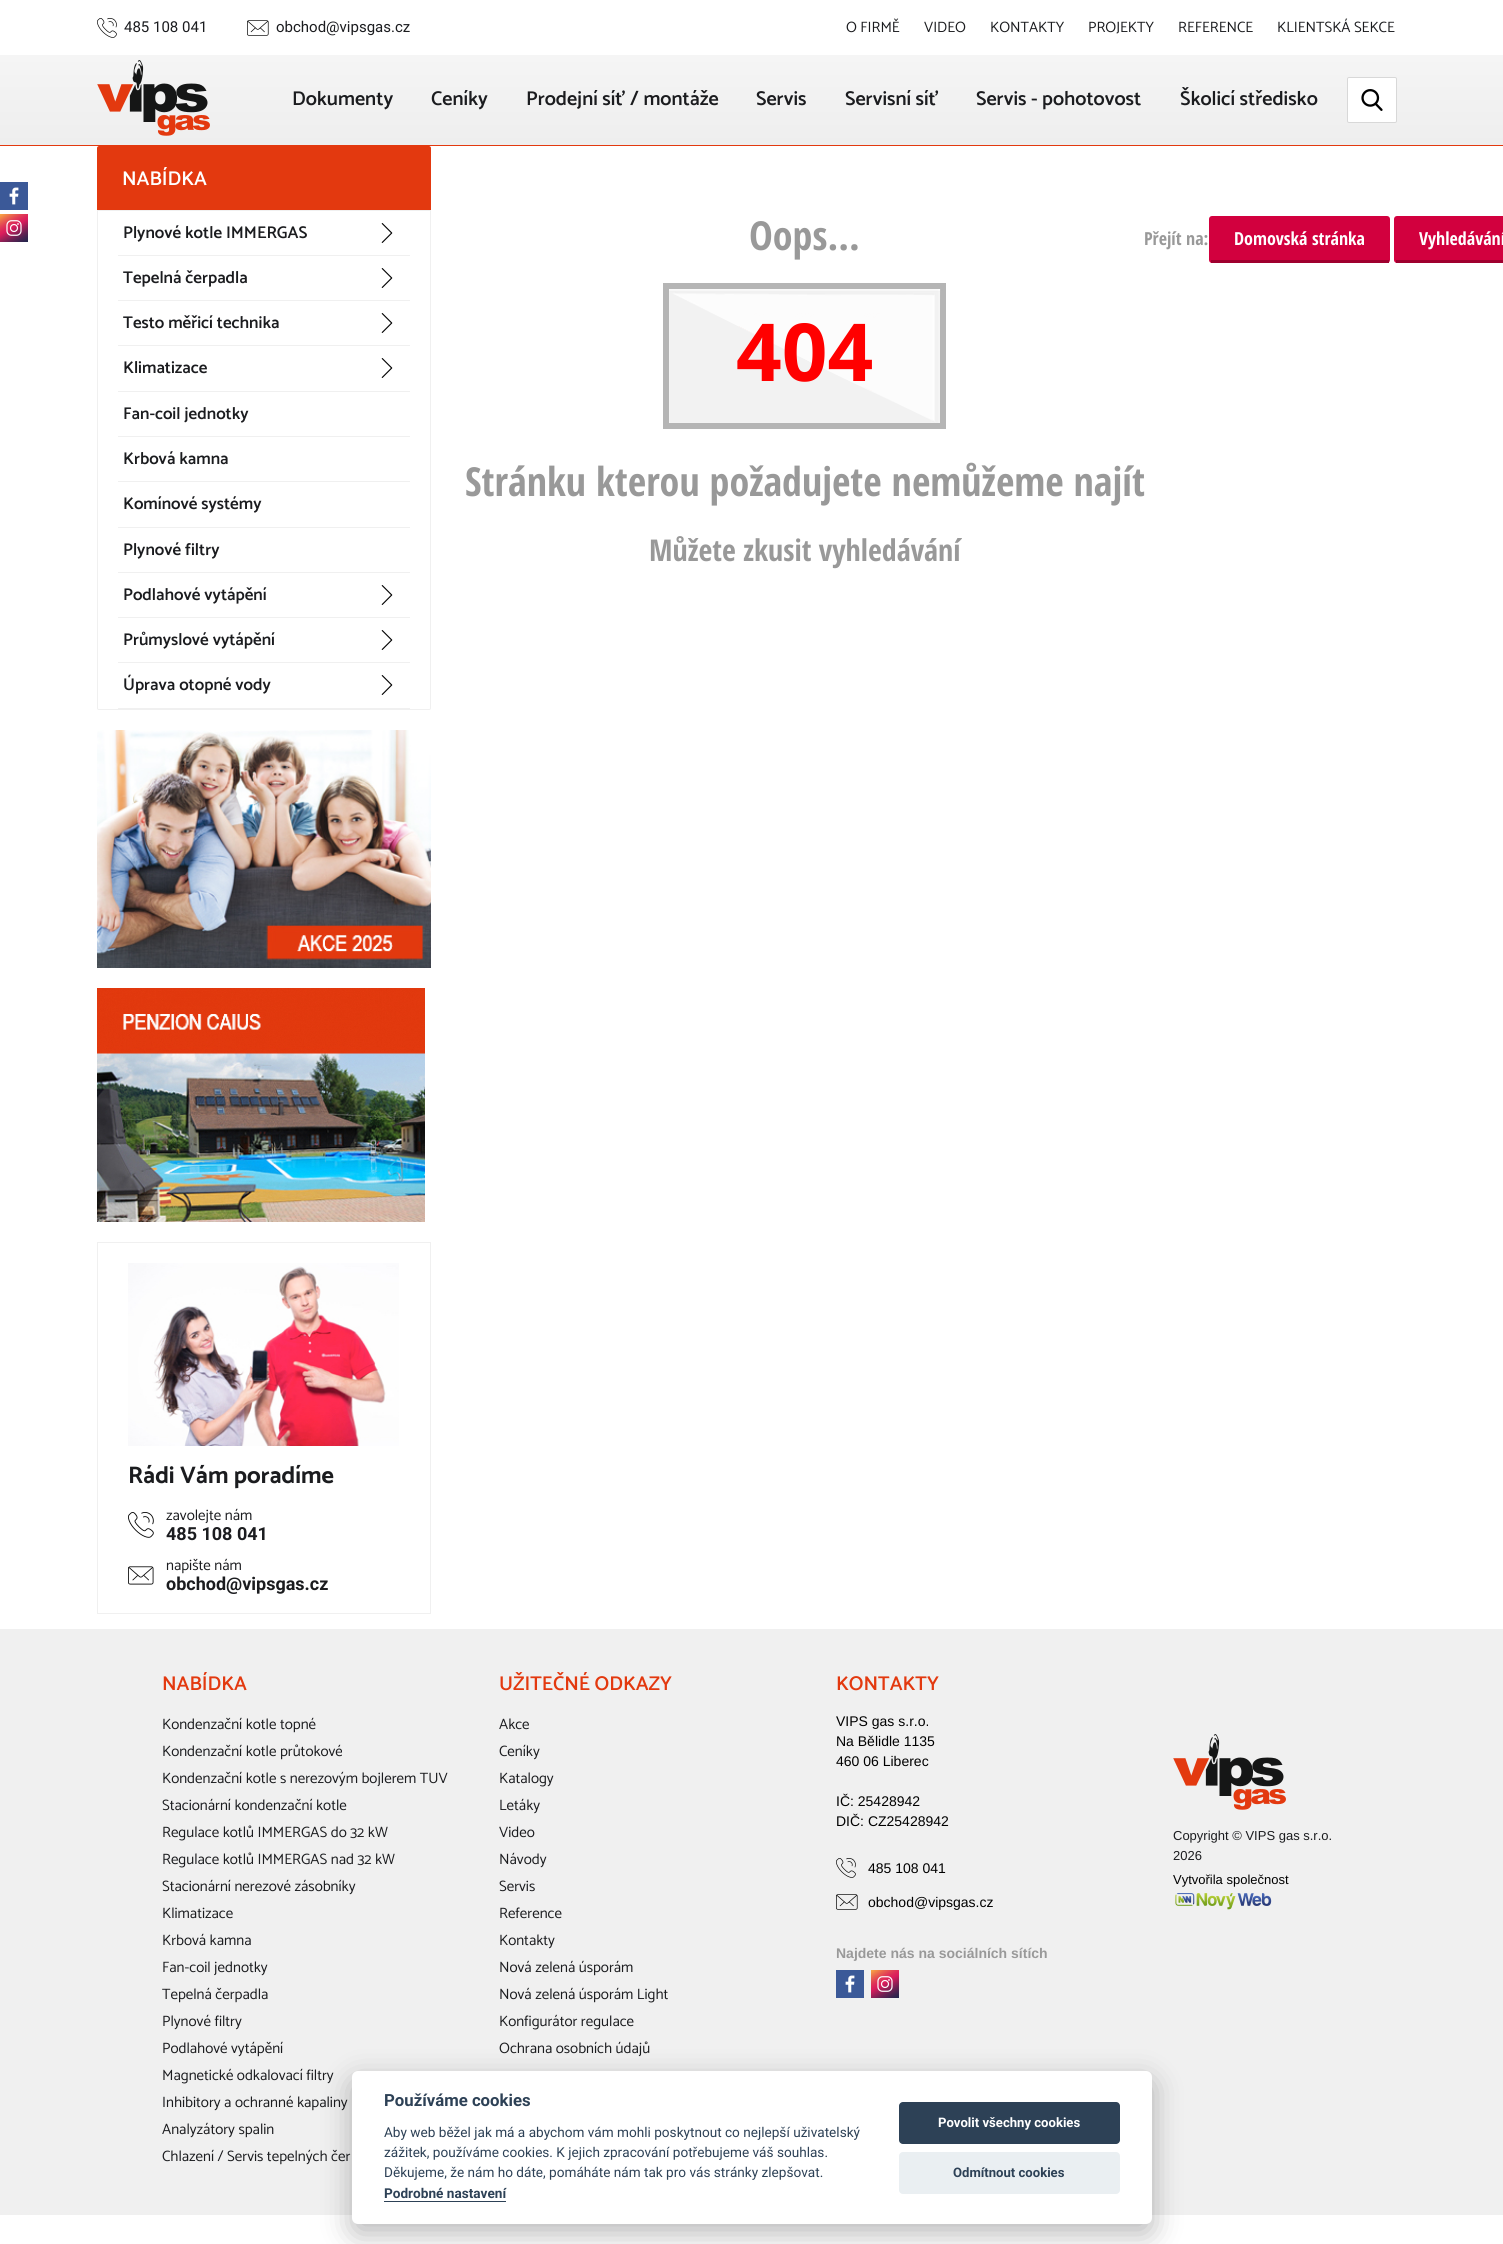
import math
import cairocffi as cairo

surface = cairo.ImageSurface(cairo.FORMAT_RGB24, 1503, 2244)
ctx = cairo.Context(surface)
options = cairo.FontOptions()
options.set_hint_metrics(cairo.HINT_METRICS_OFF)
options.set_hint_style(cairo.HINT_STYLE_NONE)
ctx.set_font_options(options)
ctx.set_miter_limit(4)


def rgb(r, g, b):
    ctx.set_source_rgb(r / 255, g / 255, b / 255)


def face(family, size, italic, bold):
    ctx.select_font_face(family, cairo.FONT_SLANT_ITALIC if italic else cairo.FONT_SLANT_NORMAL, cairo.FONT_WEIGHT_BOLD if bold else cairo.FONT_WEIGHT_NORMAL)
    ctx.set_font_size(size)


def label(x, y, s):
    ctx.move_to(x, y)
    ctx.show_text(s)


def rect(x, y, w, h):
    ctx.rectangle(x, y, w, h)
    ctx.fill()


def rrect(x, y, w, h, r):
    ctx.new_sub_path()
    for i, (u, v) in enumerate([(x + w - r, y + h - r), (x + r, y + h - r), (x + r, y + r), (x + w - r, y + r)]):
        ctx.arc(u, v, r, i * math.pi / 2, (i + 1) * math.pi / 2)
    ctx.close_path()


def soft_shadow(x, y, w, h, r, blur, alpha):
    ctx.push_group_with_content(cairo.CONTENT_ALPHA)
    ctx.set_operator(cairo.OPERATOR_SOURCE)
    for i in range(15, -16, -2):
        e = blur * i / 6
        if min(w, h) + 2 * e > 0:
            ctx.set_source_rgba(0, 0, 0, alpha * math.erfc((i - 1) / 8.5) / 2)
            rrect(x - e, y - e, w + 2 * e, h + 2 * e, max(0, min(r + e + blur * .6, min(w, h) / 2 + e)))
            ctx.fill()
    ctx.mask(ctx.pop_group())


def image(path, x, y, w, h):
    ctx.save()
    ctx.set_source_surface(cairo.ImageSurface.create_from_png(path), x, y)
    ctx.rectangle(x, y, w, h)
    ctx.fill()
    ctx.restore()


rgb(255, 255, 255)
ctx.paint()
image('image0.png', 97, 18, 20, 20)
face('Roboto', 15, 0, 0)
rgb(27, 28, 31)
label(124, 32, '485 108 041')
image('image1.png', 247, 20, 22, 16)
label(276, 32, 'obchod@vipsgas.cz')
face('Catamaran', 15, 0, 0)
label(846, 32, 'O FIRMĚ')
label(924, 32, 'VIDEO')
label(990, 32, 'KONTAKTY')
label(1088, 32, 'PROJEKTY')
label(1178, 32, 'REFERENCE')
label(1277, 32, 'KLIENTSKÁ SEKCE')
gradient = cairo.LinearGradient(752, 55, 752, 145)
gradient.add_color_stop_rgba(0, 0.961, 0.961, 0.961, 1)
gradient.add_color_stop_rgba(1, 0.933, 0.933, 0.933, 1)
ctx.set_source(gradient)
rect(0, 55, 1503, 90)
rgb(227, 57, 15)
rect(0, 145, 1503, 1)
image('image2.png', 97, 60, 113, 76)
face('Catamaran SemiBold', 20, 0, 0)
rgb(27, 28, 31)
label(292, 105, 'Dokumenty')
label(431, 105, 'Ceníky')
label(526, 105, 'Prodejní síť / montáže')
label(756, 105, 'Servis')
label(845, 105, 'Servisní síť')
label(976, 105, 'Servis - pohotovost')
label(1180, 105, 'Školicí středisko')
rgb(255, 255, 255)
rrect(1347.5, 77.5, 49, 45, 1.5)
ctx.fill_preserve()
rgb(216, 216, 216)
ctx.set_line_width(1)
ctx.stroke()
image('image3.png', 1361, 89, 22, 22)
image('image4.png', 0, 182, 28, 28)
image('image5.png', 0, 214, 28, 28)
rgb(227, 57, 15)
ctx.new_path()
ctx.move_to(99, 146)
ctx.line_to(429, 146)
ctx.curve_to(430, 146, 431, 147, 431, 148)
ctx.line_to(431, 210)
ctx.line_to(97, 210)
ctx.line_to(97, 148)
ctx.curve_to(97, 147, 98, 146, 99, 146)
ctx.close_path()
ctx.fill()
rgb(255, 255, 255)
label(122, 185, 'NABÍDKA')
ctx.new_path()
ctx.move_to(97.5, 210.5)
ctx.line_to(430.5, 210.5)
ctx.line_to(430.5, 708)
ctx.curve_to(430.5, 709, 430, 709.5, 429, 709.5)
ctx.line_to(99, 709.5)
ctx.curve_to(98, 709.5, 97.5, 709, 97.5, 708)
ctx.close_path()
rgb(240, 240, 240)
ctx.stroke()
rect(118, 255, 292, 1)
face('Catamaran SemiBold', 17, 0, 0)
rgb(27, 28, 31)
label(123, 238, 'Plynové kotle IMMERGAS')
image('image6.png', 381, 223, 12, 20)
rgb(240, 240, 240)
rect(118, 300, 292, 1)
rgb(27, 28, 31)
label(123, 283, 'Tepelná čerpadla')
image('image6.png', 381, 268, 12, 20)
rgb(240, 240, 240)
rect(118, 345, 292, 1)
rgb(27, 28, 31)
label(123, 328, 'Testo měřicí technika')
image('image6.png', 381, 313, 12, 20)
rgb(240, 240, 240)
rect(118, 391, 292, 1)
rgb(27, 28, 31)
label(123, 373, 'Klimatizace')
image('image6.png', 381, 358, 12, 20)
rgb(240, 240, 240)
rect(118, 436, 292, 1)
rgb(27, 28, 31)
label(123, 419, 'Fan-coil jednotky')
rgb(240, 240, 240)
rect(118, 481, 292, 1)
rgb(27, 28, 31)
label(123, 464, 'Krbová kamna')
rgb(240, 240, 240)
rect(118, 527, 292, 1)
rgb(27, 28, 31)
label(123, 509, 'Komínové systémy')
rgb(240, 240, 240)
rect(118, 572, 292, 1)
rgb(27, 28, 31)
label(123, 555, 'Plynové filtry')
rgb(240, 240, 240)
rect(118, 617, 292, 1)
rgb(27, 28, 31)
label(123, 600, 'Podlahové vytápění')
image('image6.png', 381, 585, 12, 20)
rgb(240, 240, 240)
rect(118, 662, 292, 1)
rgb(27, 28, 31)
label(123, 645, 'Průmyslové vytápění')
image('image6.png', 381, 630, 12, 20)
rgb(240, 240, 240)
rect(118, 708, 292, 1)
rgb(27, 28, 31)
label(123, 690, 'Úprava otopné vody')
image('image6.png', 381, 675, 12, 20)
image('image7.png', 97, 730, 334, 238)
image('image8.png', 97, 988, 328, 234)
ctx.rectangle(97.5, 1242.5, 333, 371)
rgb(240, 240, 240)
ctx.stroke()
image('image9.png', 128, 1263, 271, 183)
face('Catamaran', 24, 0, 1)
rgb(27, 28, 31)
label(128, 1483, 'Rádi Vám poradíme')
image('image10.png', 128, 1512, 26, 26)
face('Catamaran', 15, 0, 0)
label(166, 1520, 'zavolejte nám')
face('Roboto', 18, 0, 1)
label(166, 1540, '485 108 041')
image('image11.png', 128, 1566, 26, 19)
face('Catamaran', 15, 0, 0)
label(166, 1570, 'napište nám')
face('Roboto', 18, 0, 1)
label(166, 1590, 'obchod@vipsgas.cz')
face('Open Sans Condensed', 40, 0, 1)
rgb(153, 153, 153)
label(749, 250, 'Oops...')
image('image12.png', 663, 283, 283, 146)
face('Open Sans', 80, 0, 1)
rgb(255, 0, 0)
label(736, 381, '404')
face('Open Sans Condensed', 40, 0, 1)
rgb(153, 153, 153)
label(465, 496, 'Stránku kterou požadujete nemůžeme najít')
face('Open Sans Condensed', 30, 0, 1)
label(649, 561, 'Můžete zkusit vyhledávání')
face('Open Sans Condensed', 18, 0, 1)
label(1144, 245, 'Přejít na:')
rgb(210, 0, 62)
rrect(1209, 216, 181, 47, 3)
ctx.fill()
rgb(255, 255, 255)
label(1234, 245, 'Domovská stránka')
rgb(159, 0, 47)
rect(1211, 260, 178, 3)
rgb(210, 0, 62)
rrect(1394, 216, 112, 47, 3)
ctx.fill()
rgb(255, 255, 255)
label(1419, 245, 'Vyhledávání')
rgb(159, 0, 47)
rect(1396, 260, 107, 3)
rgb(240, 240, 240)
rect(0, 1629, 1503, 586)
face('Catamaran SemiBold', 20, 0, 0)
rgb(227, 57, 15)
label(162, 1690, 'NABÍDKA')
face('Catamaran', 15, 0, 0)
rgb(27, 28, 31)
label(162, 1729, 'Kondenzační kotle topné')
label(162, 1756, 'Kondenzační kotle průtokové')
label(162, 1783, 'Kondenzační kotle s nerezovým bojlerem TUV')
label(162, 1810, 'Stacionární kondenzační kotle')
label(162, 1837, 'Regulace kotlů IMMERGAS do 32 kW')
label(162, 1864, 'Regulace kotlů IMMERGAS nad 32 kW')
label(162, 1891, 'Stacionární nerezové zásobníky')
label(162, 1918, 'Klimatizace')
label(162, 1945, 'Krbová kamna')
label(162, 1972, 'Fan-coil jednotky')
label(162, 1999, 'Tepelná čerpadla')
label(162, 2026, 'Plynové filtry')
label(162, 2053, 'Podlahové vytápění')
label(162, 2080, 'Magnetické odkalovací filtry')
label(162, 2107, 'Inhibitory a ochranné kapaliny')
label(162, 2134, 'Analyzátory spalin')
label(162, 2161, 'Chlazení / Servis tepelných čer')
face('Catamaran SemiBold', 20, 0, 0)
rgb(227, 57, 15)
label(499, 1690, 'UŽITEČNÉ ODKAZY')
face('Catamaran', 15, 0, 0)
rgb(27, 28, 31)
label(499, 1729, 'Akce')
label(499, 1756, 'Ceníky')
label(499, 1783, 'Katalogy')
label(499, 1810, 'Letáky')
label(499, 1837, 'Video')
label(499, 1864, 'Návody')
label(499, 1891, 'Servis')
label(499, 1918, 'Reference')
label(499, 1945, 'Kontakty')
label(499, 1972, 'Nová zelená úsporám')
label(499, 1999, 'Nová zelená úsporám Light')
label(499, 2026, 'Konfigurátor regulace')
label(499, 2053, 'Ochrana osobních údajů')
face('Catamaran SemiBold', 20, 0, 0)
rgb(227, 57, 15)
label(836, 1690, 'KONTAKTY')
face('Liberation Sans', 14, 0, 0)
rgb(0, 0, 0)
label(836, 1726, 'VIPS gas s.r.o.')
label(836, 1746, 'Na Bělidle 1135')
label(836, 1766, '460 06 Liberec')
label(836, 1806, 'IČ: 25428942')
label(836, 1826, 'DIČ: CZ25428942')
image('image13.png', 836, 1858, 20, 20)
label(868, 1873, '485 108 041')
image('image14.png', 836, 1894, 22, 16)
label(868, 1907, 'obchod@vipsgas.cz')
face('Liberation Sans', 14, 0, 1)
rgb(153, 153, 153)
label(836, 1958, 'Najdete nás na sociálních sítích')
image('image4.png', 836, 1970, 28, 28)
image('image15.png', 871, 1970, 28, 28)
image('image16.png', 1173, 1734, 113, 76)
face('Liberation Sans', 13, 0, 0)
rgb(27, 28, 31)
label(1173, 1840, 'Copyright © VIPS gas s.r.o.')
label(1173, 1860, '2026')
rgb(0, 0, 0)
label(1173, 1884, 'Vytvořila společnost')
image('image17.png', 1175, 1893, 97, 17)
rgb(2, 2, 3)
soft_shadow(352, 2081, 800, 153, 6, 15, 0.28)
rgb(255, 255, 255)
rrect(352, 2071, 800, 153, 6)
ctx.fill()
face('Roboto', 16.75, 0, 1)
rgb(45, 65, 86)
label(384, 2106, 'Používáme cookies')
face('Roboto', 13.6, 0, 0)
label(384, 2137, 'Aby web běžel jak má a abychom vám mohli poskytnout co nejlepší uživatelský')
label(384, 2157, 'zážitek, používáme cookies. K jejich zpracování potřebujeme váš souhlas.')
label(384, 2177, 'Děkujeme, že nám ho dáte, pomáháte nám tak pro vás stránky zlepšovat.')
face('Roboto', 13.6, 0, 1)
label(384, 2198, 'Podrobné nastavení')
rect(384, 2201, 122, 1)
rrect(899, 2102, 221, 42, 4)
ctx.fill()
face('Roboto', 13.1, 0, 1)
rgb(255, 255, 255)
label(938, 2127, 'Povolit všechny cookies')
rgb(234, 239, 242)
rrect(899, 2152, 221, 42, 4)
ctx.fill()
rgb(45, 65, 86)
label(953, 2177, 'Odmítnout cookies')
surface.write_to_png('render.png')
